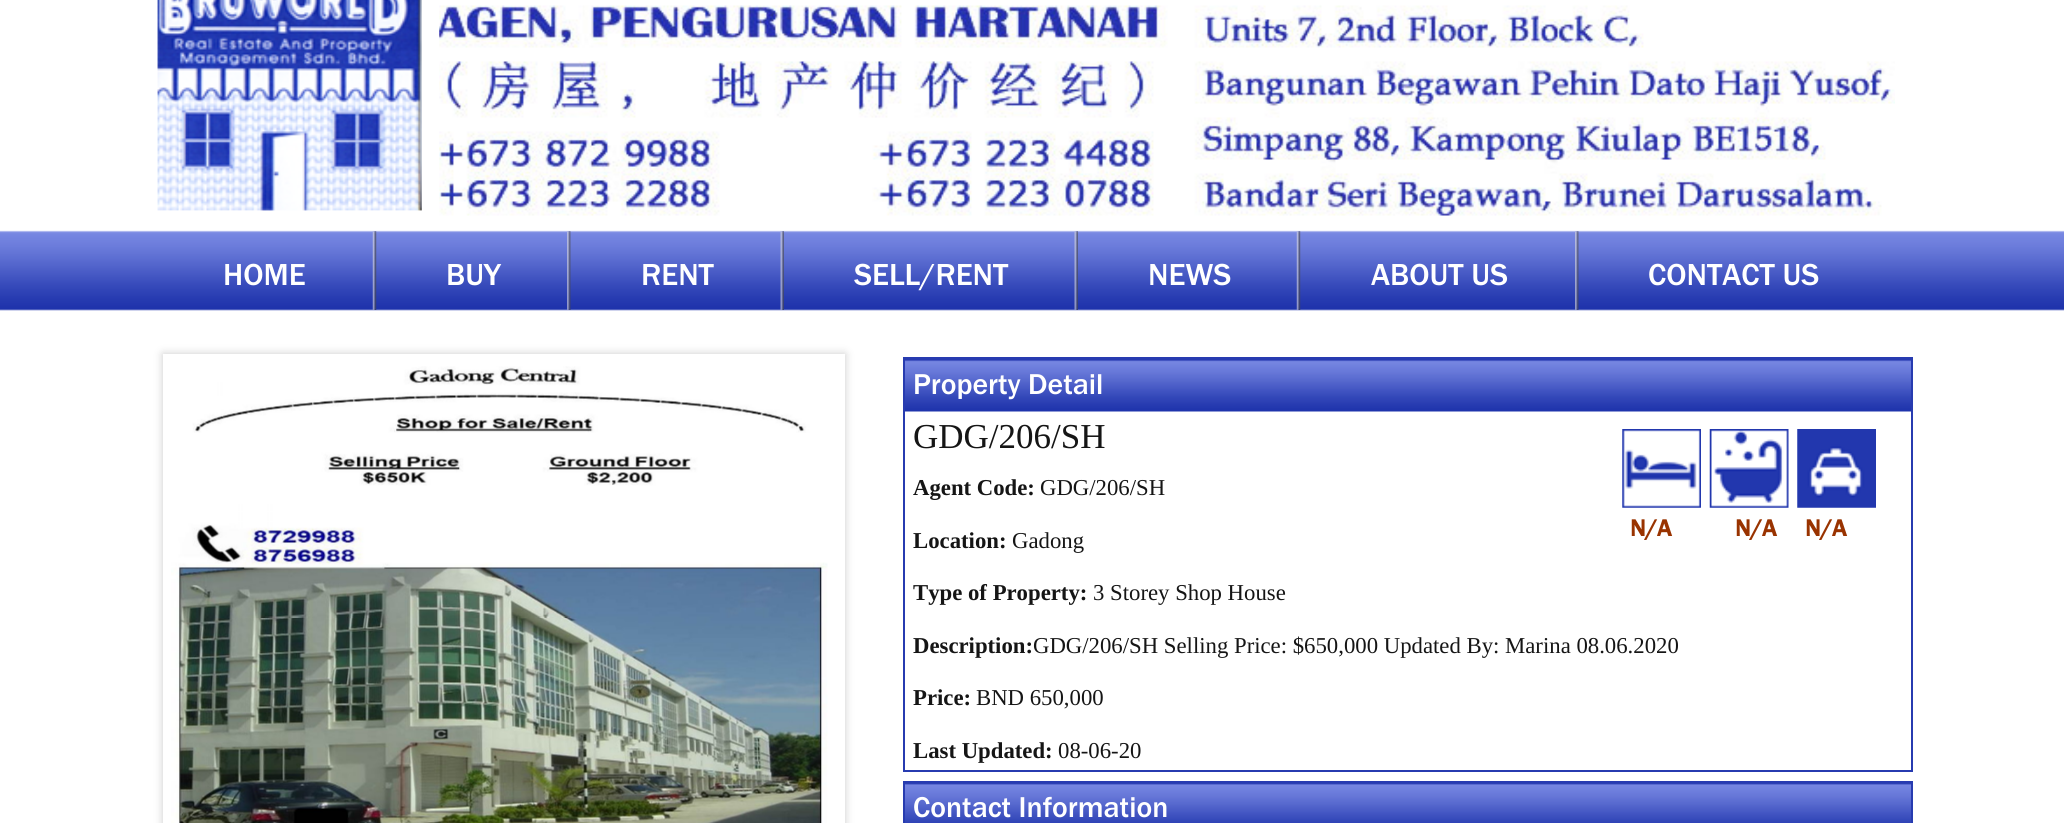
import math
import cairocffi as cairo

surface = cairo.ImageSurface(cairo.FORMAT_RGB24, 2064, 823)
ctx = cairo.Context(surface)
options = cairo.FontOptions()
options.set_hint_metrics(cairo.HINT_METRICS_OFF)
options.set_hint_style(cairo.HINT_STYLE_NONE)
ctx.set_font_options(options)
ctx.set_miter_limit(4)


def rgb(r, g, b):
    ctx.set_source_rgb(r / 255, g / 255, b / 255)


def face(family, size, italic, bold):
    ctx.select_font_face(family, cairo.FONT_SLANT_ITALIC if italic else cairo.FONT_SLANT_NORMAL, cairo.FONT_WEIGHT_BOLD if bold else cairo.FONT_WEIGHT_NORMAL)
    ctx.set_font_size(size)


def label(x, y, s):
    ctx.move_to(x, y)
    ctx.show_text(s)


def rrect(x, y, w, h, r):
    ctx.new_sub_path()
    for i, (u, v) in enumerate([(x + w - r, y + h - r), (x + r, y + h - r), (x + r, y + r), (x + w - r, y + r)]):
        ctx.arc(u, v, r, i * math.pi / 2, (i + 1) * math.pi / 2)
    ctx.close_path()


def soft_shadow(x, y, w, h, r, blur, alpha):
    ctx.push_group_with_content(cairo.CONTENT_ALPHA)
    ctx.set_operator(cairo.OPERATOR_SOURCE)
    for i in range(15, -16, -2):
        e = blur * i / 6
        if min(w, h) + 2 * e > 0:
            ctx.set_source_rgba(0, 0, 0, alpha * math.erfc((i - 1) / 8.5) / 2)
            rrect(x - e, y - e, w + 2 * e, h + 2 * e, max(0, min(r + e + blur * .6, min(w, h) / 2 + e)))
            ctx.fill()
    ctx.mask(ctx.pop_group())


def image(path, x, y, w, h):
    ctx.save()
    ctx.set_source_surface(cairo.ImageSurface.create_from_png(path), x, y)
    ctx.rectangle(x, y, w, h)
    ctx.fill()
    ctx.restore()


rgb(255, 255, 255)
ctx.paint()
image('image0.png', 0, 230, 2064, 81)
image('image1.png', 157, 0, 265, 211)
image('image2.png', 439, 5, 1456, 211)
image('image3.png', 372, 231, 5, 79)
face('Franklin Gothic Medium', 31.5, 0, 0)
rgb(255, 255, 255)
label(223, 285, 'HOME')
image('image4.png', 567, 231, 4, 79)
label(446, 285, 'BUY')
image('image5.png', 780, 231, 4, 79)
label(641, 285, 'RENT')
image('image6.png', 1074, 231, 4, 79)
label(854, 285, 'SELL/RENT')
image('image7.png', 1296, 231, 5, 79)
label(1148, 285, 'NEWS')
image('image8.png', 1575, 231, 4, 79)
label(1371, 285, 'ABOUT US')
label(1648, 285, 'CONTACT US')
ctx.save()
ctx.set_fill_rule(cairo.FILL_RULE_EVEN_ODD)
ctx.new_path()
ctx.move_to(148, 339)
ctx.line_to(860, 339)
ctx.line_to(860, 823)
ctx.line_to(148, 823)
ctx.close_path()
ctx.move_to(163, 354)
ctx.line_to(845, 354)
ctx.line_to(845, 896)
ctx.line_to(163, 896)
ctx.close_path()
ctx.clip()
rgb(204, 204, 204)
soft_shadow(163, 354, 682, 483, 0, 4.5, 1)
ctx.restore()
image('image9.png', 171, 366, 657, 457)
image('image10.png', 905, 359, 1006, 53)
ctx.rectangle(904, 358, 1008, 413)
rgb(39, 59, 176)
ctx.stroke()
face('Franklin Gothic Medium', 29.75, 0, 0)
rgb(255, 255, 255)
label(913, 394, 'Property Detail')
face('Liberation Serif', 35, 0, 0)
rgb(21, 21, 21)
label(913, 448, 'GDG/206/SH')
face('Liberation Serif', 22.75, 0, 1)
label(913, 495, 'Agent Code:')
face('Liberation Serif', 22.75, 0, 0)
label(1040, 495, 'GDG/206/SH')
face('Liberation Serif', 22.75, 0, 1)
label(913, 548, 'Location:')
face('Liberation Serif', 22.75, 0, 0)
label(1012, 548, 'Gadong')
image('image11.png', 1622, 429, 79, 79)
face('Franklin Gothic', 24, 0, 1)
rgb(153, 51, 0)
label(1630, 536, 'N/A')
image('image12.png', 1709, 429, 80, 79)
label(1735, 536, 'N/A')
image('image13.png', 1797, 429, 79, 79)
label(1805, 536, 'N/A')
face('Liberation Serif', 22.75, 0, 1)
rgb(21, 21, 21)
label(913, 600, 'Type of Property:')
face('Liberation Serif', 22.75, 0, 0)
label(1093, 600, '3 Storey Shop House')
face('Liberation Serif', 22.75, 0, 1)
label(913, 653, 'Description:')
face('Liberation Serif', 22.75, 0, 0)
label(1033, 653, 'GDG/206/SH Selling Price: $650,000 Updated By: Marina 08.06.2020')
face('Liberation Serif', 22.75, 0, 1)
label(913, 705, 'Price:')
face('Liberation Serif', 22.75, 0, 0)
label(976, 705, 'BND 650,000')
face('Liberation Serif', 22.75, 0, 1)
label(913, 758, 'Last Updated:')
face('Liberation Serif', 22.75, 0, 0)
label(1058, 758, '08-06-20')
image('image14.png', 905, 783, 1006, 40)
ctx.rectangle(904, 782, 1008, 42)
rgb(39, 59, 176)
ctx.stroke()
face('Franklin Gothic Medium', 29.75, 0, 0)
rgb(255, 255, 255)
label(913, 817, 'Contact Information')
surface.write_to_png('render.png')
